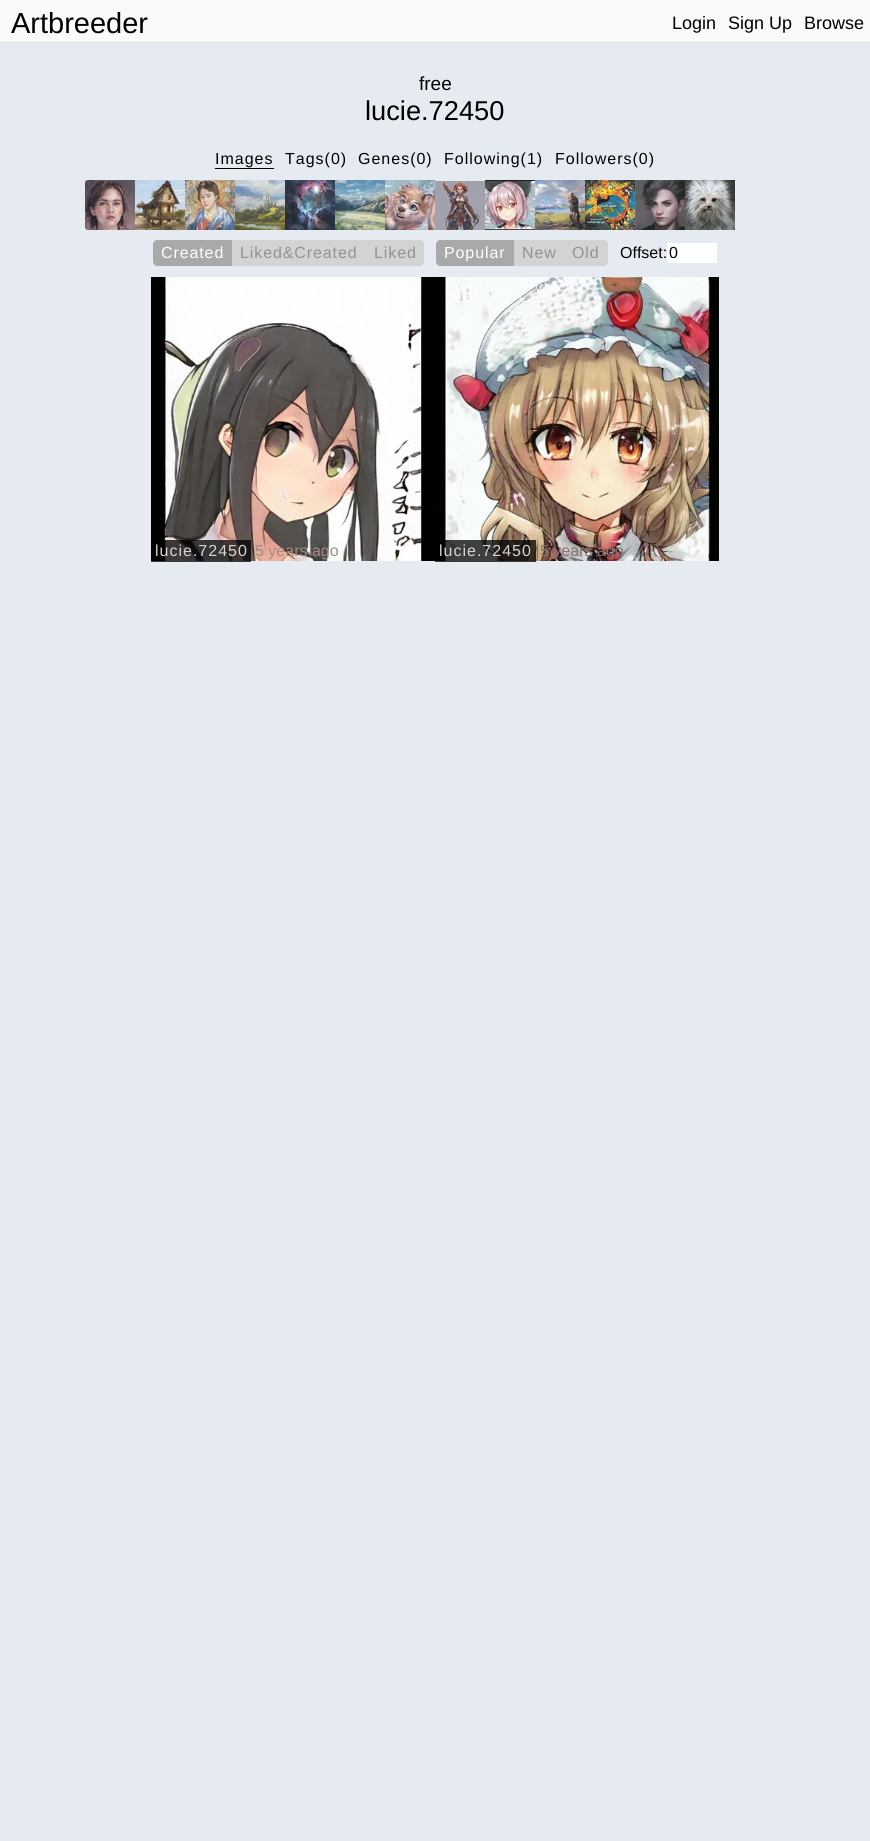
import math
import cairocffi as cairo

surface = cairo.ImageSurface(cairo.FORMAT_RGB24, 870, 1841)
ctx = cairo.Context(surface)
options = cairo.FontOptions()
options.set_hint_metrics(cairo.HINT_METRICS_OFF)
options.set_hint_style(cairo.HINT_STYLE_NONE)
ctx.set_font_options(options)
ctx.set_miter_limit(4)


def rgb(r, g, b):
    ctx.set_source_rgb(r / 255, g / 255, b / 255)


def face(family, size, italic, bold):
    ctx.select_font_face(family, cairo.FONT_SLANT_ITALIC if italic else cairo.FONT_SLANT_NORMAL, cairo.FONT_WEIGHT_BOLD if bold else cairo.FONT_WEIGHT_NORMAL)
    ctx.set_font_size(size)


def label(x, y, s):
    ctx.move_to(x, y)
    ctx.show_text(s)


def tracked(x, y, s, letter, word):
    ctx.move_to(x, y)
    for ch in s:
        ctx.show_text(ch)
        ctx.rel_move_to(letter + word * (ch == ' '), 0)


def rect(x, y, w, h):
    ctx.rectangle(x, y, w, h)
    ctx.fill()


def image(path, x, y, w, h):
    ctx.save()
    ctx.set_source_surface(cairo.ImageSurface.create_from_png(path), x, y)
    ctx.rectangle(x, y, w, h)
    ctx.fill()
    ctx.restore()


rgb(230, 235, 241)
ctx.paint()
rgb(250, 250, 250)
rect(0, 0, 870, 42)
rgb(224, 224, 224)
rect(0, 42, 870, 1)
face('Liberation Sans', 29, 0, 0)
rgb(0, 0, 0)
label(11, 33, 'Artbreeder')
face('Liberation Sans', 18, 0, 0)
label(672, 29, 'Login')
label(728, 29, 'Sign Up')
label(804, 29, 'Browse')
face('Liberation Sans', 19, 0, 0)
label(419, 90, 'free')
face('Liberation Sans', 27.25, 0, 0)
label(365, 120, 'lucie.72450')
rect(215, 168, 59, 1)
face('Liberation Sans', 16, 0, 0)
tracked(215, 164, 'Images', 1, 0)
tracked(285, 164, 'Tags(0)', 1, 0)
tracked(358, 164, 'Genes(0)', 1, 0)
tracked(444, 164, 'Following(1)', 1, 0)
tracked(555, 164, 'Followers(0)', 1, 0)
image('image0.png', 85, 180, 50, 50)
image('image1.png', 135, 180, 50, 50)
image('image2.png', 185, 180, 50, 50)
image('image3.png', 235, 180, 50, 50)
image('image4.png', 285, 180, 50, 50)
image('image5.png', 335, 180, 50, 50)
image('image6.png', 385, 180, 50, 50)
image('image7.png', 435, 181, 50, 49)
image('image8.png', 485, 180, 50, 50)
image('image9.png', 535, 180, 50, 50)
image('image10.png', 585, 180, 50, 50)
image('image11.png', 635, 180, 50, 50)
image('image12.png', 685, 180, 50, 50)
rgb(169, 169, 169)
ctx.new_path()
ctx.move_to(157, 240)
ctx.line_to(232, 240)
ctx.line_to(232, 266)
ctx.line_to(157, 266)
ctx.curve_to(155, 266, 153, 264, 153, 262)
ctx.line_to(153, 244)
ctx.curve_to(153, 242, 155, 240, 157, 240)
ctx.close_path()
ctx.fill()
rgb(255, 255, 255)
tracked(161, 258, 'Created', 0.9, 0)
rgb(211, 211, 211)
rect(232, 240, 134, 26)
rgb(146, 146, 146)
tracked(240, 258, 'Liked&Created', 0.9, 0)
rgb(211, 211, 211)
ctx.new_path()
ctx.move_to(366, 240)
ctx.line_to(420, 240)
ctx.curve_to(422, 240, 424, 242, 424, 244)
ctx.line_to(424, 262)
ctx.curve_to(424, 264, 422, 266, 420, 266)
ctx.line_to(366, 266)
ctx.close_path()
ctx.fill()
rgb(146, 146, 146)
tracked(374, 258, 'Liked', 0.9, 0)
rgb(169, 169, 169)
ctx.new_path()
ctx.move_to(440, 240)
ctx.line_to(514, 240)
ctx.line_to(514, 266)
ctx.line_to(440, 266)
ctx.curve_to(438, 266, 436, 264, 436, 262)
ctx.line_to(436, 244)
ctx.curve_to(436, 242, 438, 240, 440, 240)
ctx.close_path()
ctx.fill()
rgb(255, 255, 255)
tracked(444, 258, 'Popular', 0.9, 0)
rgb(211, 211, 211)
rect(514, 240, 50, 26)
rgb(146, 146, 146)
tracked(522, 258, 'New', 0.9, 0)
rgb(211, 211, 211)
ctx.new_path()
ctx.move_to(564, 240)
ctx.line_to(604, 240)
ctx.curve_to(606, 240, 608, 242, 608, 244)
ctx.line_to(608, 262)
ctx.curve_to(608, 264, 606, 266, 604, 266)
ctx.line_to(564, 266)
ctx.close_path()
ctx.fill()
rgb(146, 146, 146)
tracked(572, 258, 'Old', 0.9, 0)
rgb(0, 0, 0)
label(620, 258, 'Offset:')
rgb(255, 255, 255)
rect(667, 243, 50, 20)
rgb(0, 0, 0)
label(669, 258, '0')
image('image13.png', 151, 277, 284, 284)
ctx.set_source_rgba(0, 0, 0, 0.75)
rect(151, 540, 100, 22)
rgb(212, 212, 212)
tracked(155, 556, 'lucie.72450', 1, 0)
rgb(162, 139, 131)
label(255, 556, '5 years ago')
image('image14.png', 435, 277, 284, 284)
ctx.set_source_rgba(0, 0, 0, 0.75)
rect(435, 540, 101, 22)
rgb(212, 212, 212)
tracked(439, 556, 'lucie.72450', 1, 0)
rgb(140, 114, 112)
label(540, 556, '5 years ago')
surface.write_to_png('render.png')
